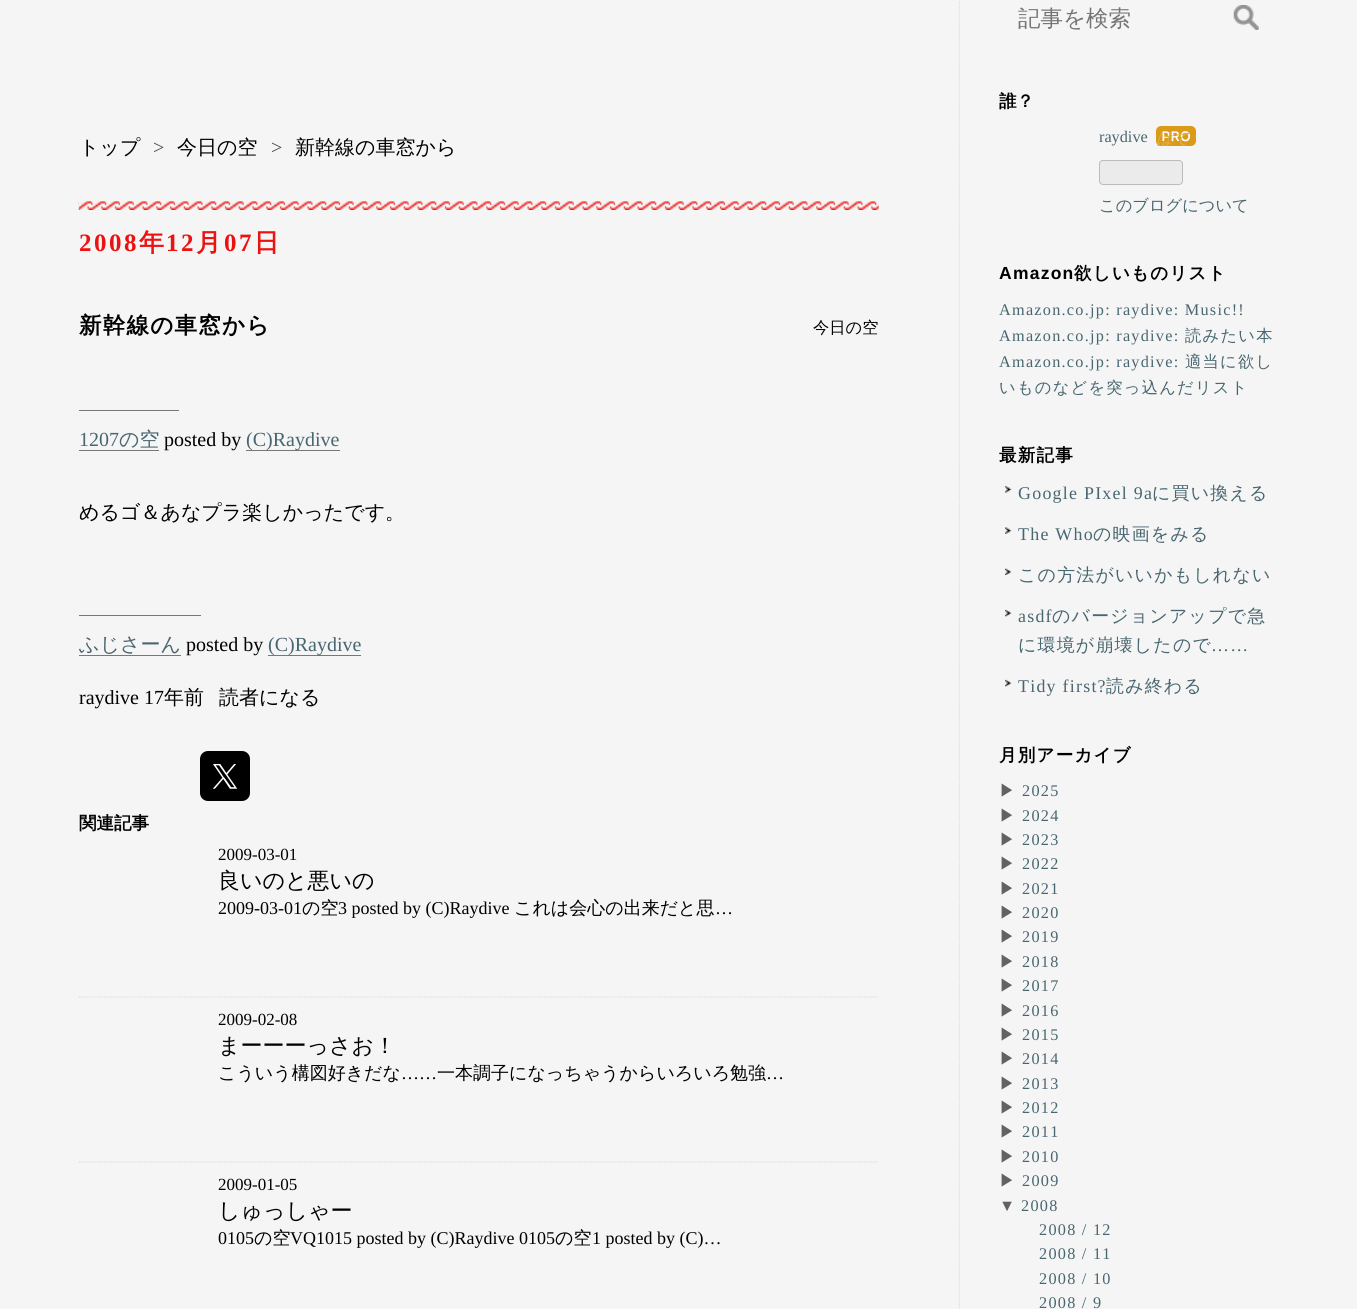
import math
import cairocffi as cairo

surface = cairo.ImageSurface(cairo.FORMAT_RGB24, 1357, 1309)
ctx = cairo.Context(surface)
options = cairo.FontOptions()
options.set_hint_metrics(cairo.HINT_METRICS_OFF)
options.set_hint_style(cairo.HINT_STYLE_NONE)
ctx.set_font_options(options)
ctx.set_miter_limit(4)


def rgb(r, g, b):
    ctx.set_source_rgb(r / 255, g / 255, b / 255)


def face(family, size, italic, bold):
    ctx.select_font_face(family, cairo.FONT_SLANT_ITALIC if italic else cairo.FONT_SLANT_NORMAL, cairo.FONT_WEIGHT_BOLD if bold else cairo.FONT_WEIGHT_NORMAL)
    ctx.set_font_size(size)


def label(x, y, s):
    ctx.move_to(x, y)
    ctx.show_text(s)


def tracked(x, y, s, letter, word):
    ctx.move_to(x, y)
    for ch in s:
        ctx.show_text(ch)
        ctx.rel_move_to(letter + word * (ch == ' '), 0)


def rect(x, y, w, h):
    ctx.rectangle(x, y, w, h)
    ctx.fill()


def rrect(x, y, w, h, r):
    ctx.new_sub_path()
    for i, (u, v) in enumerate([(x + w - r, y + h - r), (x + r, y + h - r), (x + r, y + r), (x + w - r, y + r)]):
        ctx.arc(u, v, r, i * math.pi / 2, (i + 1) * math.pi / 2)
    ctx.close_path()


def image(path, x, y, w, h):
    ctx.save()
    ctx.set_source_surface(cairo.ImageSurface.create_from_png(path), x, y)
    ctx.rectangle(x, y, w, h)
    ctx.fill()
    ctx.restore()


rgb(245, 245, 245)
ctx.paint()
image('image0.png', 958, 1, 2, 1308)
image('image1.png', 78, 201, 801, 9)
face('Liberation Serif', 25, 0, 1)
rgb(235, 18, 18)
tracked(79, 251, '2008', 2.5, 0)
face('WenQuanYi Zen Hei', 25, 0, 1)
tracked(139, 251, '年', 2.5, 0)
face('Liberation Serif', 25, 0, 1)
tracked(166, 251, '12', 2.5, 0)
face('WenQuanYi Zen Hei', 25, 0, 1)
tracked(196, 251, '月', 2.5, 0)
face('Liberation Serif', 25, 0, 1)
tracked(224, 251, '07', 2.5, 0)
face('WenQuanYi Zen Hei', 25, 0, 1)
tracked(254, 251, '日', 2.5, 0)
face('WenQuanYi Zen Hei', 22.5, 0, 1)
rgb(0, 0, 0)
tracked(79, 333, '新幹線の車窓から', 1.25, 0)
face('WenQuanYi Zen Hei Medium', 16.25, 0, 0)
label(813, 333, '今日の空')
rgb(119, 119, 119)
rect(79, 410, 100, 1)
face('Liberation Serif', 20, 0, 0)
rgb(72, 102, 112)
label(79, 446, '1207')
rgb(119, 119, 119)
rect(79, 450, 80, 1)
face('WenQuanYi Zen Hei Medium', 20, 0, 0)
rgb(72, 102, 112)
label(119, 446, 'の空')
face('Liberation Serif', 20, 0, 0)
rgb(0, 0, 0)
label(164, 446, 'posted by')
rgb(119, 119, 119)
rect(246, 450, 94, 1)
rgb(72, 102, 112)
label(246, 446, '(C)Raydive')
face('WenQuanYi Zen Hei Medium', 20, 0, 0)
rgb(0, 0, 0)
label(79, 519, 'めるゴ＆あなプラ楽しかったです。')
rgb(119, 119, 119)
rect(79, 615, 122, 1)
rgb(72, 102, 112)
label(79, 651, 'ふじさーん')
rgb(119, 119, 119)
rect(79, 655, 102, 1)
face('Liberation Serif', 20, 0, 0)
rgb(0, 0, 0)
label(186, 651, 'posted by')
rgb(119, 119, 119)
rect(268, 655, 93, 1)
rgb(72, 102, 112)
label(268, 651, '(C)Raydive')
rgb(0, 0, 0)
label(79, 704, 'raydive 17')
face('WenQuanYi Zen Hei Medium', 20, 0, 0)
label(164, 704, '年前')
label(219, 704, '読者になる')
rrect(200, 751, 50, 50, 8)
ctx.fill()
image('image2.png', 213, 764, 25, 25)
face('WenQuanYi Zen Hei', 17.5, 0, 1)
label(79, 829, '関連記事')
ctx.new_path()
ctx.move_to(79, 997)
ctx.line_to(879, 997)
rgb(221, 221, 221)
ctx.set_line_width(1.2)
ctx.set_dash([1.25, 1.25])
ctx.stroke()
face('Liberation Serif', 17, 0, 0)
rgb(0, 0, 0)
label(218, 860, '2009-03-01')
face('WenQuanYi Zen Hei Medium', 22, 0, 0)
label(218, 888, '良いのと悪いの')
face('Liberation Serif', 18, 0, 0)
label(218, 914, '2009-03-01')
face('WenQuanYi Zen Hei Medium', 18, 0, 0)
label(302, 914, 'の空')
face('Liberation Serif', 18, 0, 0)
label(338, 914, '3 posted by (C)Raydive')
face('WenQuanYi Zen Hei Medium', 18, 0, 0)
label(514, 914, 'これは会心の出来だと思')
face('Liberation Serif', 18, 0, 0)
label(715, 914, '…')
ctx.new_path()
ctx.move_to(79, 1162)
ctx.line_to(879, 1162)
rgb(221, 221, 221)
ctx.stroke()
face('Liberation Serif', 17, 0, 0)
rgb(0, 0, 0)
label(218, 1025, '2009-02-08')
face('WenQuanYi Zen Hei Medium', 22, 0, 0)
label(218, 1053, 'まーーーっさお！')
face('WenQuanYi Zen Hei Medium', 18, 0, 0)
label(218, 1079, 'こういう構図好きだな')
face('Liberation Serif', 18, 0, 0)
label(401, 1079, '……')
face('WenQuanYi Zen Hei Medium', 18, 0, 0)
label(437, 1079, '一本調子になっちゃうからいろいろ勉強')
face('Liberation Serif', 18, 0, 0)
label(766, 1079, '…')
face('Liberation Serif', 17, 0, 0)
label(218, 1190, '2009-01-05')
face('WenQuanYi Zen Hei Medium', 22, 0, 0)
label(218, 1218, 'しゅっしゃー')
face('Liberation Serif', 18, 0, 0)
label(218, 1244, '0105')
face('WenQuanYi Zen Hei Medium', 18, 0, 0)
label(254, 1244, 'の空')
face('Liberation Serif', 18, 0, 0)
label(290, 1244, 'VQ1015 posted by (C)Raydive 0105')
face('WenQuanYi Zen Hei Medium', 18, 0, 0)
label(555, 1244, 'の空')
face('Liberation Serif', 18, 0, 0)
label(592, 1244, '1 posted by (C)…')
face('WenQuanYi Zen Hei Medium', 22.5, 0, 0)
rgb(117, 117, 117)
label(1018, 26, '記事を検索')
image('image3.png', 1233, 5, 26, 25)
face('WenQuanYi Zen Hei', 17.5, 0, 1)
rgb(0, 0, 0)
label(999, 107, '誰？')
face('Liberation Serif', 16.25, 0, 0)
rgb(72, 102, 112)
label(1099, 142, 'raydive')
image('image4.png', 1156, 126, 40, 20)
ctx.save()
ctx.rectangle(1156, 126, 40, 20)
ctx.clip()
face('WenQuanYi Zen Hei Medium', 16.25, 1, 0)
rgb(226, 175, 71)
label(1156, 144, 'はて')
ctx.restore()
rgb(235, 235, 235)
rrect(1099.5, 160.5, 83, 24, 3.5)
ctx.fill_preserve()
rgb(187, 187, 187)
ctx.set_line_width(1)
ctx.set_dash([])
ctx.stroke()
face('WenQuanYi Zen Hei Medium', 16.25, 0, 0)
rgb(72, 102, 112)
label(1099, 211, 'このブログについて')
face('Liberation Sans', 17.5, 0, 1)
rgb(0, 0, 0)
tracked(999, 279, 'Amazon', 1.25, 0)
face('WenQuanYi Zen Hei', 17.5, 0, 1)
tracked(1074, 279, '欲しいものリスト', 1.25, 0)
face('Liberation Serif', 16.25, 0, 0)
rgb(72, 102, 112)
tracked(999, 315, 'Amazon.co.jp: raydive: Music!!', 1.25, 0)
tracked(999, 341, 'Amazon.co.jp: raydive:', 1.25, 0)
face('WenQuanYi Zen Hei Medium', 16.25, 0, 0)
tracked(1185, 341, '読みたい本', 1.25, 0)
face('Liberation Serif', 16.25, 0, 0)
tracked(999, 367, 'Amazon.co.jp: raydive:', 1.25, 0)
face('WenQuanYi Zen Hei Medium', 16.25, 0, 0)
tracked(1185, 367, '適当に欲し', 1.25, 0)
tracked(999, 393, 'いものなどを突っ込んだリスト', 1.25, 0)
face('WenQuanYi Zen Hei', 17.5, 0, 1)
rgb(0, 0, 0)
tracked(999, 461, '最新記事', 1.25, 0)
image('image5.png', 1005, 486, 7, 7)
face('Liberation Serif', 17.9, 0, 0)
rgb(72, 102, 112)
tracked(1018, 499, 'Google PIxel 9a', 1.25, 0)
face('WenQuanYi Zen Hei Medium', 17.9, 0, 0)
tracked(1152, 499, 'に買い換える', 1.25, 0)
image('image6.png', 1005, 527, 7, 7)
face('Liberation Serif', 17.9, 0, 0)
tracked(1018, 540, 'The Who', 1.25, 0)
face('WenQuanYi Zen Hei Medium', 17.9, 0, 0)
tracked(1093, 540, 'の映画をみる', 1.25, 0)
image('image7.png', 1005, 568, 7, 7)
tracked(1018, 581, 'この方法がいいかもしれない', 1.25, 0)
image('image8.png', 1005, 609, 7, 8)
face('Liberation Serif', 17.9, 0, 0)
tracked(1018, 622, 'asdf', 1.25, 0)
face('WenQuanYi Zen Hei Medium', 17.9, 0, 0)
tracked(1052, 622, 'のバージョンアップで急', 1.25, 0)
tracked(1018, 651, 'に環境が崩壊したので', 1.25, 0)
face('Liberation Serif', 17.9, 0, 0)
tracked(1211, 651, '……', 1.25, 0)
image('image8.png', 1005, 679, 7, 8)
tracked(1018, 692, 'Tidy first?', 1.25, 0)
face('WenQuanYi Zen Hei Medium', 17.9, 0, 0)
tracked(1106, 692, '読み終わる', 1.25, 0)
face('WenQuanYi Zen Hei', 17.5, 0, 1)
rgb(0, 0, 0)
tracked(999, 761, '月別アーカイブ', 1.25, 0)
face('WenQuanYi Zen Hei Medium', 16.25, 0, 0)
rgb(98, 98, 98)
tracked(999, 796, '▶', 1.25, 0)
face('Liberation Serif', 16.25, 0, 0)
rgb(72, 102, 112)
tracked(1022, 796, '2025', 1.25, 0)
face('WenQuanYi Zen Hei Medium', 16.25, 0, 0)
rgb(98, 98, 98)
tracked(999, 821, '▶', 1.25, 0)
face('Liberation Serif', 16.25, 0, 0)
rgb(72, 102, 112)
tracked(1022, 821, '2024', 1.25, 0)
face('WenQuanYi Zen Hei Medium', 16.25, 0, 0)
rgb(98, 98, 98)
tracked(999, 845, '▶', 1.25, 0)
face('Liberation Serif', 16.25, 0, 0)
rgb(72, 102, 112)
tracked(1022, 845, '2023', 1.25, 0)
face('WenQuanYi Zen Hei Medium', 16.25, 0, 0)
rgb(98, 98, 98)
tracked(999, 869, '▶', 1.25, 0)
face('Liberation Serif', 16.25, 0, 0)
rgb(72, 102, 112)
tracked(1022, 869, '2022', 1.25, 0)
face('WenQuanYi Zen Hei Medium', 16.25, 0, 0)
rgb(98, 98, 98)
tracked(999, 894, '▶', 1.25, 0)
face('Liberation Serif', 16.25, 0, 0)
rgb(72, 102, 112)
tracked(1022, 894, '2021', 1.25, 0)
face('WenQuanYi Zen Hei Medium', 16.25, 0, 0)
rgb(98, 98, 98)
tracked(999, 918, '▶', 1.25, 0)
face('Liberation Serif', 16.25, 0, 0)
rgb(72, 102, 112)
tracked(1022, 918, '2020', 1.25, 0)
face('WenQuanYi Zen Hei Medium', 16.25, 0, 0)
rgb(98, 98, 98)
tracked(999, 942, '▶', 1.25, 0)
face('Liberation Serif', 16.25, 0, 0)
rgb(72, 102, 112)
tracked(1022, 942, '2019', 1.25, 0)
face('WenQuanYi Zen Hei Medium', 16.25, 0, 0)
rgb(98, 98, 98)
tracked(999, 967, '▶', 1.25, 0)
face('Liberation Serif', 16.25, 0, 0)
rgb(72, 102, 112)
tracked(1022, 967, '2018', 1.25, 0)
face('WenQuanYi Zen Hei Medium', 16.25, 0, 0)
rgb(98, 98, 98)
tracked(999, 991, '▶', 1.25, 0)
face('Liberation Serif', 16.25, 0, 0)
rgb(72, 102, 112)
tracked(1022, 991, '2017', 1.25, 0)
face('WenQuanYi Zen Hei Medium', 16.25, 0, 0)
rgb(98, 98, 98)
tracked(999, 1016, '▶', 1.25, 0)
face('Liberation Serif', 16.25, 0, 0)
rgb(72, 102, 112)
tracked(1022, 1016, '2016', 1.25, 0)
face('WenQuanYi Zen Hei Medium', 16.25, 0, 0)
rgb(98, 98, 98)
tracked(999, 1040, '▶', 1.25, 0)
face('Liberation Serif', 16.25, 0, 0)
rgb(72, 102, 112)
tracked(1022, 1040, '2015', 1.25, 0)
face('WenQuanYi Zen Hei Medium', 16.25, 0, 0)
rgb(98, 98, 98)
tracked(999, 1064, '▶', 1.25, 0)
face('Liberation Serif', 16.25, 0, 0)
rgb(72, 102, 112)
tracked(1022, 1064, '2014', 1.25, 0)
face('WenQuanYi Zen Hei Medium', 16.25, 0, 0)
rgb(98, 98, 98)
tracked(999, 1089, '▶', 1.25, 0)
face('Liberation Serif', 16.25, 0, 0)
rgb(72, 102, 112)
tracked(1022, 1089, '2013', 1.25, 0)
face('WenQuanYi Zen Hei Medium', 16.25, 0, 0)
rgb(98, 98, 98)
tracked(999, 1113, '▶', 1.25, 0)
face('Liberation Serif', 16.25, 0, 0)
rgb(72, 102, 112)
tracked(1022, 1113, '2012', 1.25, 0)
face('WenQuanYi Zen Hei Medium', 16.25, 0, 0)
rgb(98, 98, 98)
tracked(999, 1137, '▶', 1.25, 0)
face('Liberation Serif', 16.25, 0, 0)
rgb(72, 102, 112)
tracked(1022, 1137, '2011', 1.25, 0)
face('WenQuanYi Zen Hei Medium', 16.25, 0, 0)
rgb(98, 98, 98)
tracked(999, 1162, '▶', 1.25, 0)
face('Liberation Serif', 16.25, 0, 0)
rgb(72, 102, 112)
tracked(1022, 1162, '2010', 1.25, 0)
face('WenQuanYi Zen Hei Medium', 16.25, 0, 0)
rgb(98, 98, 98)
tracked(999, 1186, '▶', 1.25, 0)
face('Liberation Serif', 16.25, 0, 0)
rgb(72, 102, 112)
tracked(1022, 1186, '2009', 1.25, 0)
rgb(98, 98, 98)
tracked(999, 1211, '▼', 1.25, 0)
rgb(72, 102, 112)
tracked(1021, 1211, '2008', 1.25, 0)
tracked(1039, 1235, '2008 / 12', 1.25, 0)
tracked(1039, 1259, '2008 / 11', 1.25, 0)
tracked(1039, 1284, '2008 / 10', 1.25, 0)
tracked(1039, 1308, '2008 / 9', 1.25, 0)
face('WenQuanYi Zen Hei Medium', 20, 0, 0)
rgb(0, 0, 0)
label(79, 154, 'トップ')
face('Liberation Serif', 20, 0, 0)
rgb(74, 74, 74)
label(153, 154, '>')
face('WenQuanYi Zen Hei Medium', 20, 0, 0)
rgb(0, 0, 0)
label(177, 154, '今日の空')
face('Liberation Serif', 20, 0, 0)
rgb(74, 74, 74)
label(271, 154, '>')
face('WenQuanYi Zen Hei Medium', 20, 0, 0)
rgb(0, 0, 0)
label(295, 154, '新幹線の車窓から')
surface.write_to_png('render.png')
